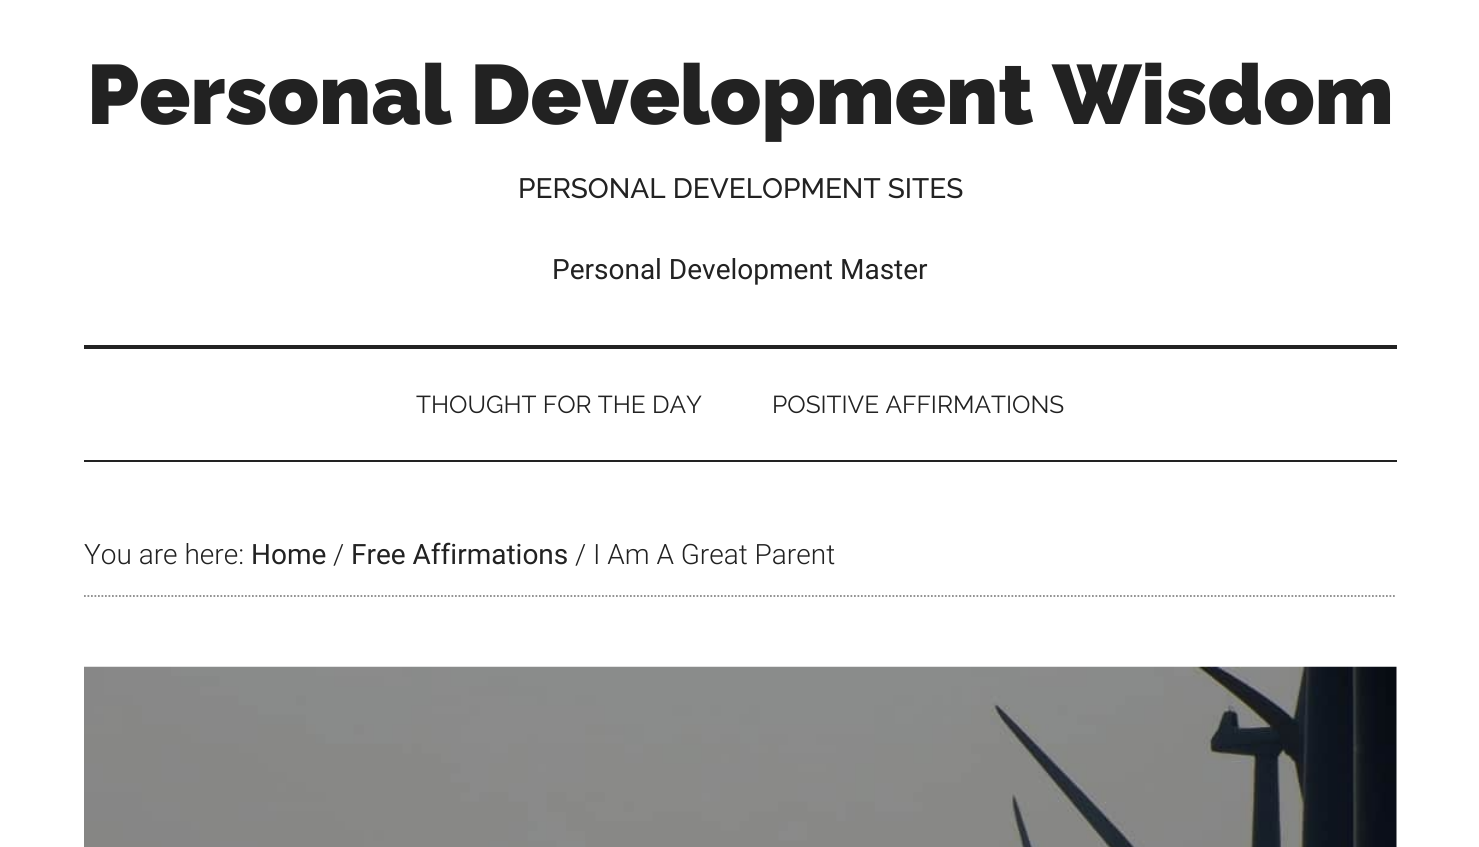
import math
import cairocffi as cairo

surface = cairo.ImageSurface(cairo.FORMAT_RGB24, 1479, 847)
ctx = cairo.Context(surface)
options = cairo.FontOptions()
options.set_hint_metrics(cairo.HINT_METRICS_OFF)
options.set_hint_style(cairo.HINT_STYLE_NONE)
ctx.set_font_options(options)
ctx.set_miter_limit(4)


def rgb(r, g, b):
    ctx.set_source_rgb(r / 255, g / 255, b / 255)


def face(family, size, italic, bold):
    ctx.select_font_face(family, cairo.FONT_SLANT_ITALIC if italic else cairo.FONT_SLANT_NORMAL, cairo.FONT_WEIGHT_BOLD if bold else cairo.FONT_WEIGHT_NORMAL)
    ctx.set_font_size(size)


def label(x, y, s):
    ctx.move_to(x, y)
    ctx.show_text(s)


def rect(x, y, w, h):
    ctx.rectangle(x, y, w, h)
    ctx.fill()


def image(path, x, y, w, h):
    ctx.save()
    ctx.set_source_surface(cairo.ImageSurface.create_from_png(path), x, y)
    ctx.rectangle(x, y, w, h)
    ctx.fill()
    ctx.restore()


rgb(255, 255, 255)
ctx.paint()
rgb(34, 34, 34)
rect(84, 345, 1313, 4)
face('Raleway Black', 84, 0, 0)
label(87, 124, 'Personal Development Wisdom')
face('Raleway Medium', 28, 0, 0)
label(518, 198, 'PERSONAL DEVELOPMENT SITES')
face('Roboto', 28, 0, 0)
label(552, 279, 'Personal Development Master')
rect(84, 460, 1313, 2)
face('Raleway', 24.5, 0, 0)
label(416, 413, 'THOUGHT FOR THE DAY')
label(772, 413, 'POSITIVE AFFIRMATIONS')
ctx.new_path()
ctx.move_to(84, 596)
ctx.line_to(1396.5, 596)
rgb(136, 136, 136)
ctx.set_line_width(1.8)
ctx.set_dash([1.75, 1.75])
ctx.stroke()
face('Roboto Light', 28, 0, 0)
rgb(34, 34, 34)
label(84, 564, 'You are here:')
face('Roboto', 28, 0, 0)
label(251, 564, 'Home')
face('Roboto Light', 28, 0, 0)
label(333, 564, '/')
face('Roboto', 28, 0, 0)
label(351, 564, 'Free Affirmations')
face('Roboto Light', 28, 0, 0)
label(575, 564, '/ I Am A Great Parent')
image('image0.png', 84, 666, 1313, 181)
surface.write_to_png('render.png')
